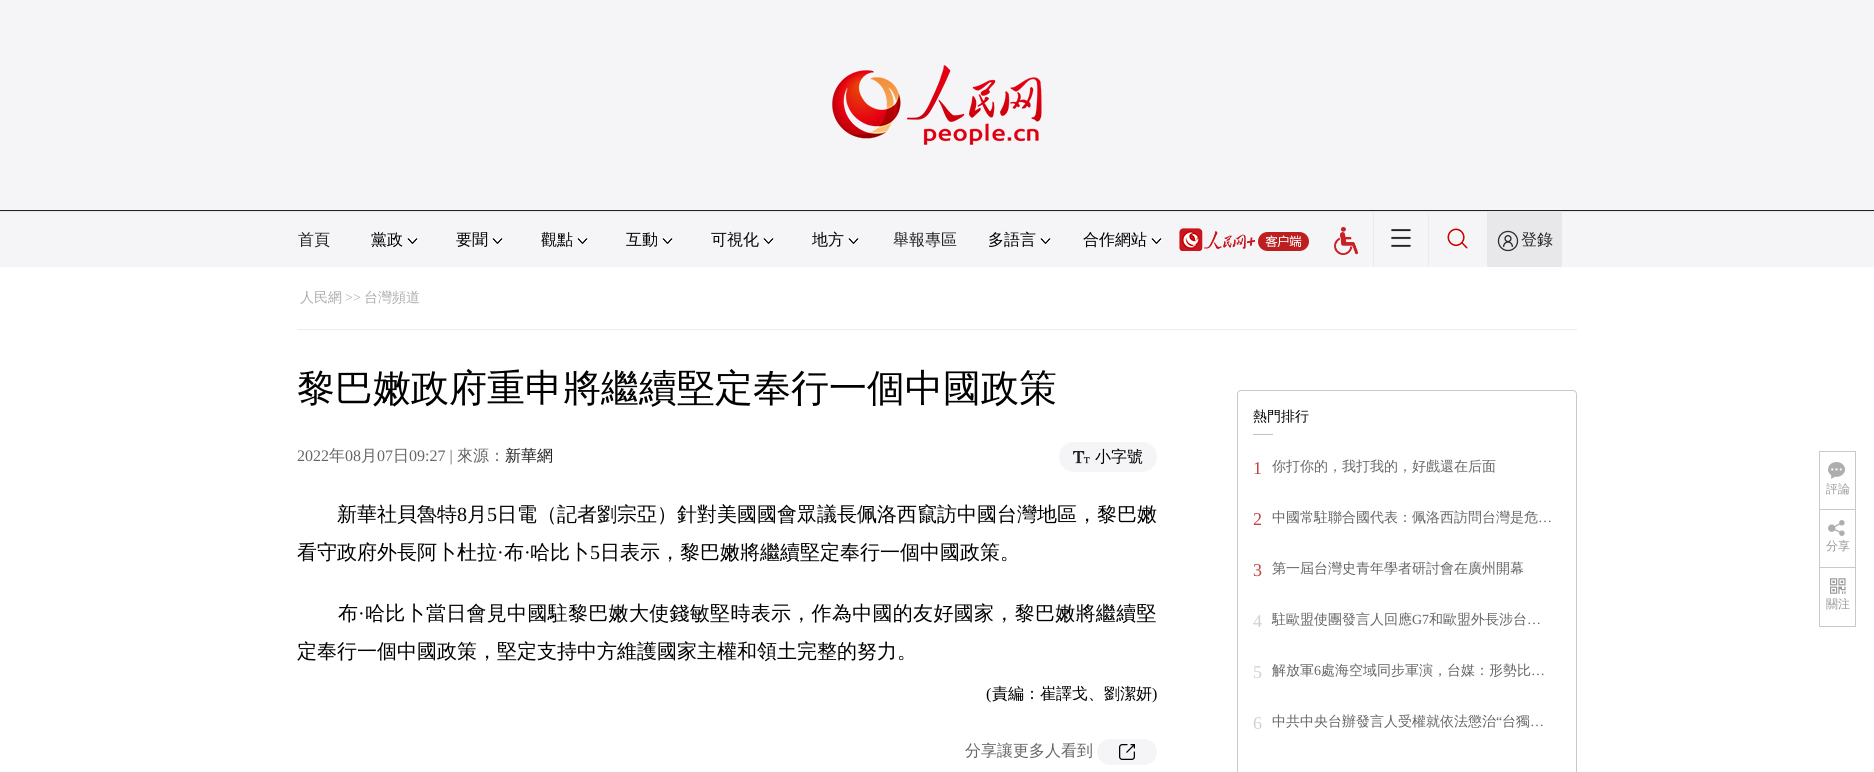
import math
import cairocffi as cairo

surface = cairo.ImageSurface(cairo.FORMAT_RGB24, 1874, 772)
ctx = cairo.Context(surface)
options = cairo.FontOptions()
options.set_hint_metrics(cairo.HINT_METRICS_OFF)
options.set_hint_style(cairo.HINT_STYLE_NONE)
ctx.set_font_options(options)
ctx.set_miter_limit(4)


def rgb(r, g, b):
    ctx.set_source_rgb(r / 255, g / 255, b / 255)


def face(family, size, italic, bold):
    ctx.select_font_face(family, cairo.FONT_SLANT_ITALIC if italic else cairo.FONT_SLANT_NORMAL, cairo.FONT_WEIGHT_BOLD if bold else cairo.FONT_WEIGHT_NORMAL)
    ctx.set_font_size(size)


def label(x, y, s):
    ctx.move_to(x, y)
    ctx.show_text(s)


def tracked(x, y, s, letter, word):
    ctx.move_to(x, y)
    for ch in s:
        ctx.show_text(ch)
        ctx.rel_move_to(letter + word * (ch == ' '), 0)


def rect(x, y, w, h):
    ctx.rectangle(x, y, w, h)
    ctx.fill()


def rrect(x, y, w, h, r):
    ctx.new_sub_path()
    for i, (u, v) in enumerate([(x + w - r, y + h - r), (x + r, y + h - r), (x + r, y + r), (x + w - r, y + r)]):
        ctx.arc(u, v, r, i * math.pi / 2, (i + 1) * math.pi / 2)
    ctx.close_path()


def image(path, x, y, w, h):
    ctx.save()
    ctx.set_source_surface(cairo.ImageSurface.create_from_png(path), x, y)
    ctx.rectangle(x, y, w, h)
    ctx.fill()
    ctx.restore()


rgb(255, 255, 255)
ctx.paint()
rgb(245, 245, 247)
rect(0, 0, 1874, 210)
rgb(33, 33, 33)
rect(0, 210, 1874, 1)
image('image0.png', 832, 65, 210, 80)
rgb(233, 233, 233)
rect(0, 211, 1874, 1)
rgb(245, 245, 247)
rect(0, 212, 1874, 55)
face('WenQuanYi Zen Hei Medium', 16, 0, 0)
rgb(33, 33, 33)
label(298, 245, '首頁')
rgb(0, 0, 0)
label(371, 245, '黨政')
image('image1.png', 407, 238, 11, 6)
label(456, 245, '要聞')
image('image1.png', 492, 238, 11, 6)
label(541, 245, '觀點')
image('image1.png', 577, 238, 11, 6)
label(626, 245, '互動')
image('image1.png', 662, 238, 11, 6)
label(711, 245, '可視化')
image('image1.png', 763, 238, 11, 6)
label(812, 245, '地方')
image('image1.png', 848, 238, 11, 6)
rgb(33, 33, 33)
label(893, 245, '舉報專區')
rgb(0, 0, 0)
label(988, 245, '多語言')
image('image1.png', 1040, 238, 11, 6)
label(1083, 245, '合作網站')
image('image1.png', 1151, 238, 11, 6)
image('image2.png', 1179, 228, 130, 23)
image('image3.png', 1334, 227, 24, 28)
rgb(235, 235, 237)
rect(1428, 212, 1, 55)
rect(1373, 212, 1, 55)
image('image4.png', 1391, 229, 20, 18)
image('image5.png', 1447, 228, 22, 22)
rgb(232, 232, 234)
rect(1487, 212, 75, 55)
image('image6.png', 1497, 230, 22, 22)
rgb(33, 33, 33)
label(1521, 245, '登錄')
rgb(236, 236, 236)
rect(297, 329, 1280, 1)
face('WenQuanYi Zen Hei Medium', 14, 0, 0)
rgb(173, 173, 173)
label(300, 302, '人民網')
face('Liberation Serif', 14, 0, 0)
label(345, 302, '>>')
face('WenQuanYi Zen Hei Medium', 14, 0, 0)
label(364, 302, '台灣頻道')
face('WenQuanYi Zen Hei Medium', 38, 0, 0)
rgb(0, 0, 0)
label(297, 401, '黎巴嫩政府重申將繼續堅定奉行一個中國政策')
face('Liberation Serif', 16, 0, 0)
rgb(102, 102, 102)
label(297, 461, '2022')
face('WenQuanYi Zen Hei Medium', 16, 0, 0)
label(329, 461, '年')
face('Liberation Serif', 16, 0, 0)
label(345, 461, '08')
face('WenQuanYi Zen Hei Medium', 16, 0, 0)
label(361, 461, '月')
face('Liberation Serif', 16, 0, 0)
label(377, 461, '07')
face('WenQuanYi Zen Hei Medium', 16, 0, 0)
label(393, 461, '日')
face('Liberation Serif', 16, 0, 0)
label(409, 461, '09:27 |')
face('WenQuanYi Zen Hei Medium', 16, 0, 0)
label(457, 461, '來源：')
rgb(33, 33, 33)
label(505, 461, '新華網')
rgb(245, 245, 247)
rrect(1059, 442, 98, 30, 15)
ctx.fill()
image('image7.png', 1073, 451, 17, 13)
rgb(0, 0, 0)
label(1095, 462, '小字號')
face('WenQuanYi Zen Hei Medium', 20, 0, 0)
label(337, 521, '新華社貝魯特')
face('Liberation Serif', 20, 0, 0)
label(457, 521, '8')
face('WenQuanYi Zen Hei Medium', 20, 0, 0)
label(467, 521, '月')
face('Liberation Serif', 20, 0, 0)
label(487, 521, '5')
face('WenQuanYi Zen Hei Medium', 20, 0, 0)
label(497, 521, '日電（記者劉宗亞）針對美國國會眾議長佩洛西竄訪中國台灣地區，黎巴嫩')
label(297, 559, '看守政府外長阿卜杜拉')
face('Liberation Serif', 20, 0, 0)
label(497, 559, '·')
face('WenQuanYi Zen Hei Medium', 20, 0, 0)
label(504, 559, '布')
face('Liberation Serif', 20, 0, 0)
label(524, 559, '·')
face('WenQuanYi Zen Hei Medium', 20, 0, 0)
label(530, 559, '哈比卜')
face('Liberation Serif', 20, 0, 0)
label(590, 559, '5')
face('WenQuanYi Zen Hei Medium', 20, 0, 0)
label(600, 559, '日表示，黎巴嫩將繼續堅定奉行一個中國政策。')
tracked(338, 620, '布', 0.3, 0)
face('Liberation Serif', 20, 0, 0)
tracked(358, 620, '·', 0.3, 0)
face('WenQuanYi Zen Hei Medium', 20, 0, 0)
tracked(365, 620, '哈比卜當日會見中國駐黎巴嫩大使錢敏堅時表示，作為中國的友好國家，黎巴嫩將繼續堅', 0.3, 0)
label(297, 658, '定奉行一個中國政策，堅定支持中方維護國家主權和領土完整的努力。')
face('Liberation Serif', 16, 0, 0)
label(986, 699, '(')
face('WenQuanYi Zen Hei Medium', 16, 0, 0)
label(992, 699, '責編：崔譯戈、劉潔妍')
face('Liberation Serif', 16, 0, 0)
label(1152, 699, ')')
face('WenQuanYi Zen Hei Medium', 16, 0, 0)
rgb(102, 102, 102)
label(965, 756, '分享讓更多人看到')
rgb(245, 245, 247)
rrect(1097, 739, 60, 26, 13)
ctx.fill()
image('image8.png', 1119, 744, 16, 16)
rrect(1237.5, 390.5, 339, 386, 3.5)
rgb(201, 201, 201)
ctx.set_line_width(1)
ctx.stroke()
face('WenQuanYi Zen Hei Medium', 14, 0, 0)
rgb(0, 0, 0)
label(1253, 421, '熱門排行')
rgb(193, 193, 193)
rect(1253, 434, 20, 1)
face('Liberation Serif', 18, 0, 0)
rgb(197, 66, 66)
label(1253, 474, '1')
face('WenQuanYi Zen Hei Medium', 14, 0, 0)
rgb(102, 102, 102)
label(1272, 471, '你打你的，我打我的，好戲還在后面')
face('Liberation Serif', 18, 0, 0)
rgb(197, 66, 66)
label(1253, 525, '2')
face('WenQuanYi Zen Hei Medium', 14, 0, 0)
rgb(102, 102, 102)
label(1272, 522, '中國常駐聯合國代表：佩洛西訪問台灣是危')
face('Liberation Serif', 14, 0, 0)
label(1538, 522, '…')
face('Liberation Serif', 18, 0, 0)
rgb(197, 66, 66)
label(1253, 576, '3')
face('WenQuanYi Zen Hei Medium', 14, 0, 0)
rgb(102, 102, 102)
label(1272, 573, '第一屆台灣史青年學者研討會在廣州開幕')
face('Liberation Serif', 18, 0, 0)
rgb(208, 208, 208)
label(1253, 627, '4')
face('WenQuanYi Zen Hei Medium', 14, 0, 0)
rgb(102, 102, 102)
label(1272, 624, '駐歐盟使團發言人回應')
face('Liberation Serif', 14, 0, 0)
label(1412, 624, 'G7')
face('WenQuanYi Zen Hei Medium', 14, 0, 0)
label(1429, 624, '和歐盟外長涉台')
face('Liberation Serif', 14, 0, 0)
label(1527, 624, '…')
face('Liberation Serif', 18, 0, 0)
rgb(208, 208, 208)
label(1253, 678, '5')
face('WenQuanYi Zen Hei Medium', 14, 0, 0)
rgb(102, 102, 102)
label(1272, 675, '解放軍')
face('Liberation Serif', 14, 0, 0)
label(1314, 675, '6')
face('WenQuanYi Zen Hei Medium', 14, 0, 0)
label(1321, 675, '處海空域同步軍演，台媒：形勢比')
face('Liberation Serif', 14, 0, 0)
label(1531, 675, '…')
face('Liberation Serif', 18, 0, 0)
rgb(208, 208, 208)
label(1253, 729, '6')
face('WenQuanYi Zen Hei Medium', 14, 0, 0)
rgb(102, 102, 102)
label(1272, 726, '中共中央台辦發言人受權就依法懲治')
face('Liberation Serif', 14, 0, 0)
label(1496, 726, '“')
face('WenQuanYi Zen Hei Medium', 14, 0, 0)
label(1502, 726, '台獨')
face('Liberation Serif', 14, 0, 0)
label(1530, 726, '…')
ctx.save()
ctx.rectangle(1819, 451, 37, 58)
ctx.clip()
ctx.rectangle(1819.5, 451.5, 36, 60)
rgb(201, 201, 201)
ctx.stroke()
ctx.restore()
image('image9.png', 1828, 462, 17, 17)
face('WenQuanYi Zen Hei Medium', 12, 0, 0)
rgb(153, 153, 153)
label(1826, 493, '評論')
ctx.save()
ctx.rectangle(1819, 509, 37, 58)
ctx.clip()
ctx.rectangle(1819.5, 509.5, 36, 59)
rgb(201, 201, 201)
ctx.stroke()
ctx.restore()
image('image10.png', 1828, 520, 17, 16)
label(1826, 550, '分享')
ctx.rectangle(1819.5, 567.5, 36, 59)
rgb(201, 201, 201)
ctx.stroke()
image('image11.png', 1830, 578, 16, 16)
rgb(153, 153, 153)
label(1826, 608, '關注')
surface.write_to_png('render.png')
